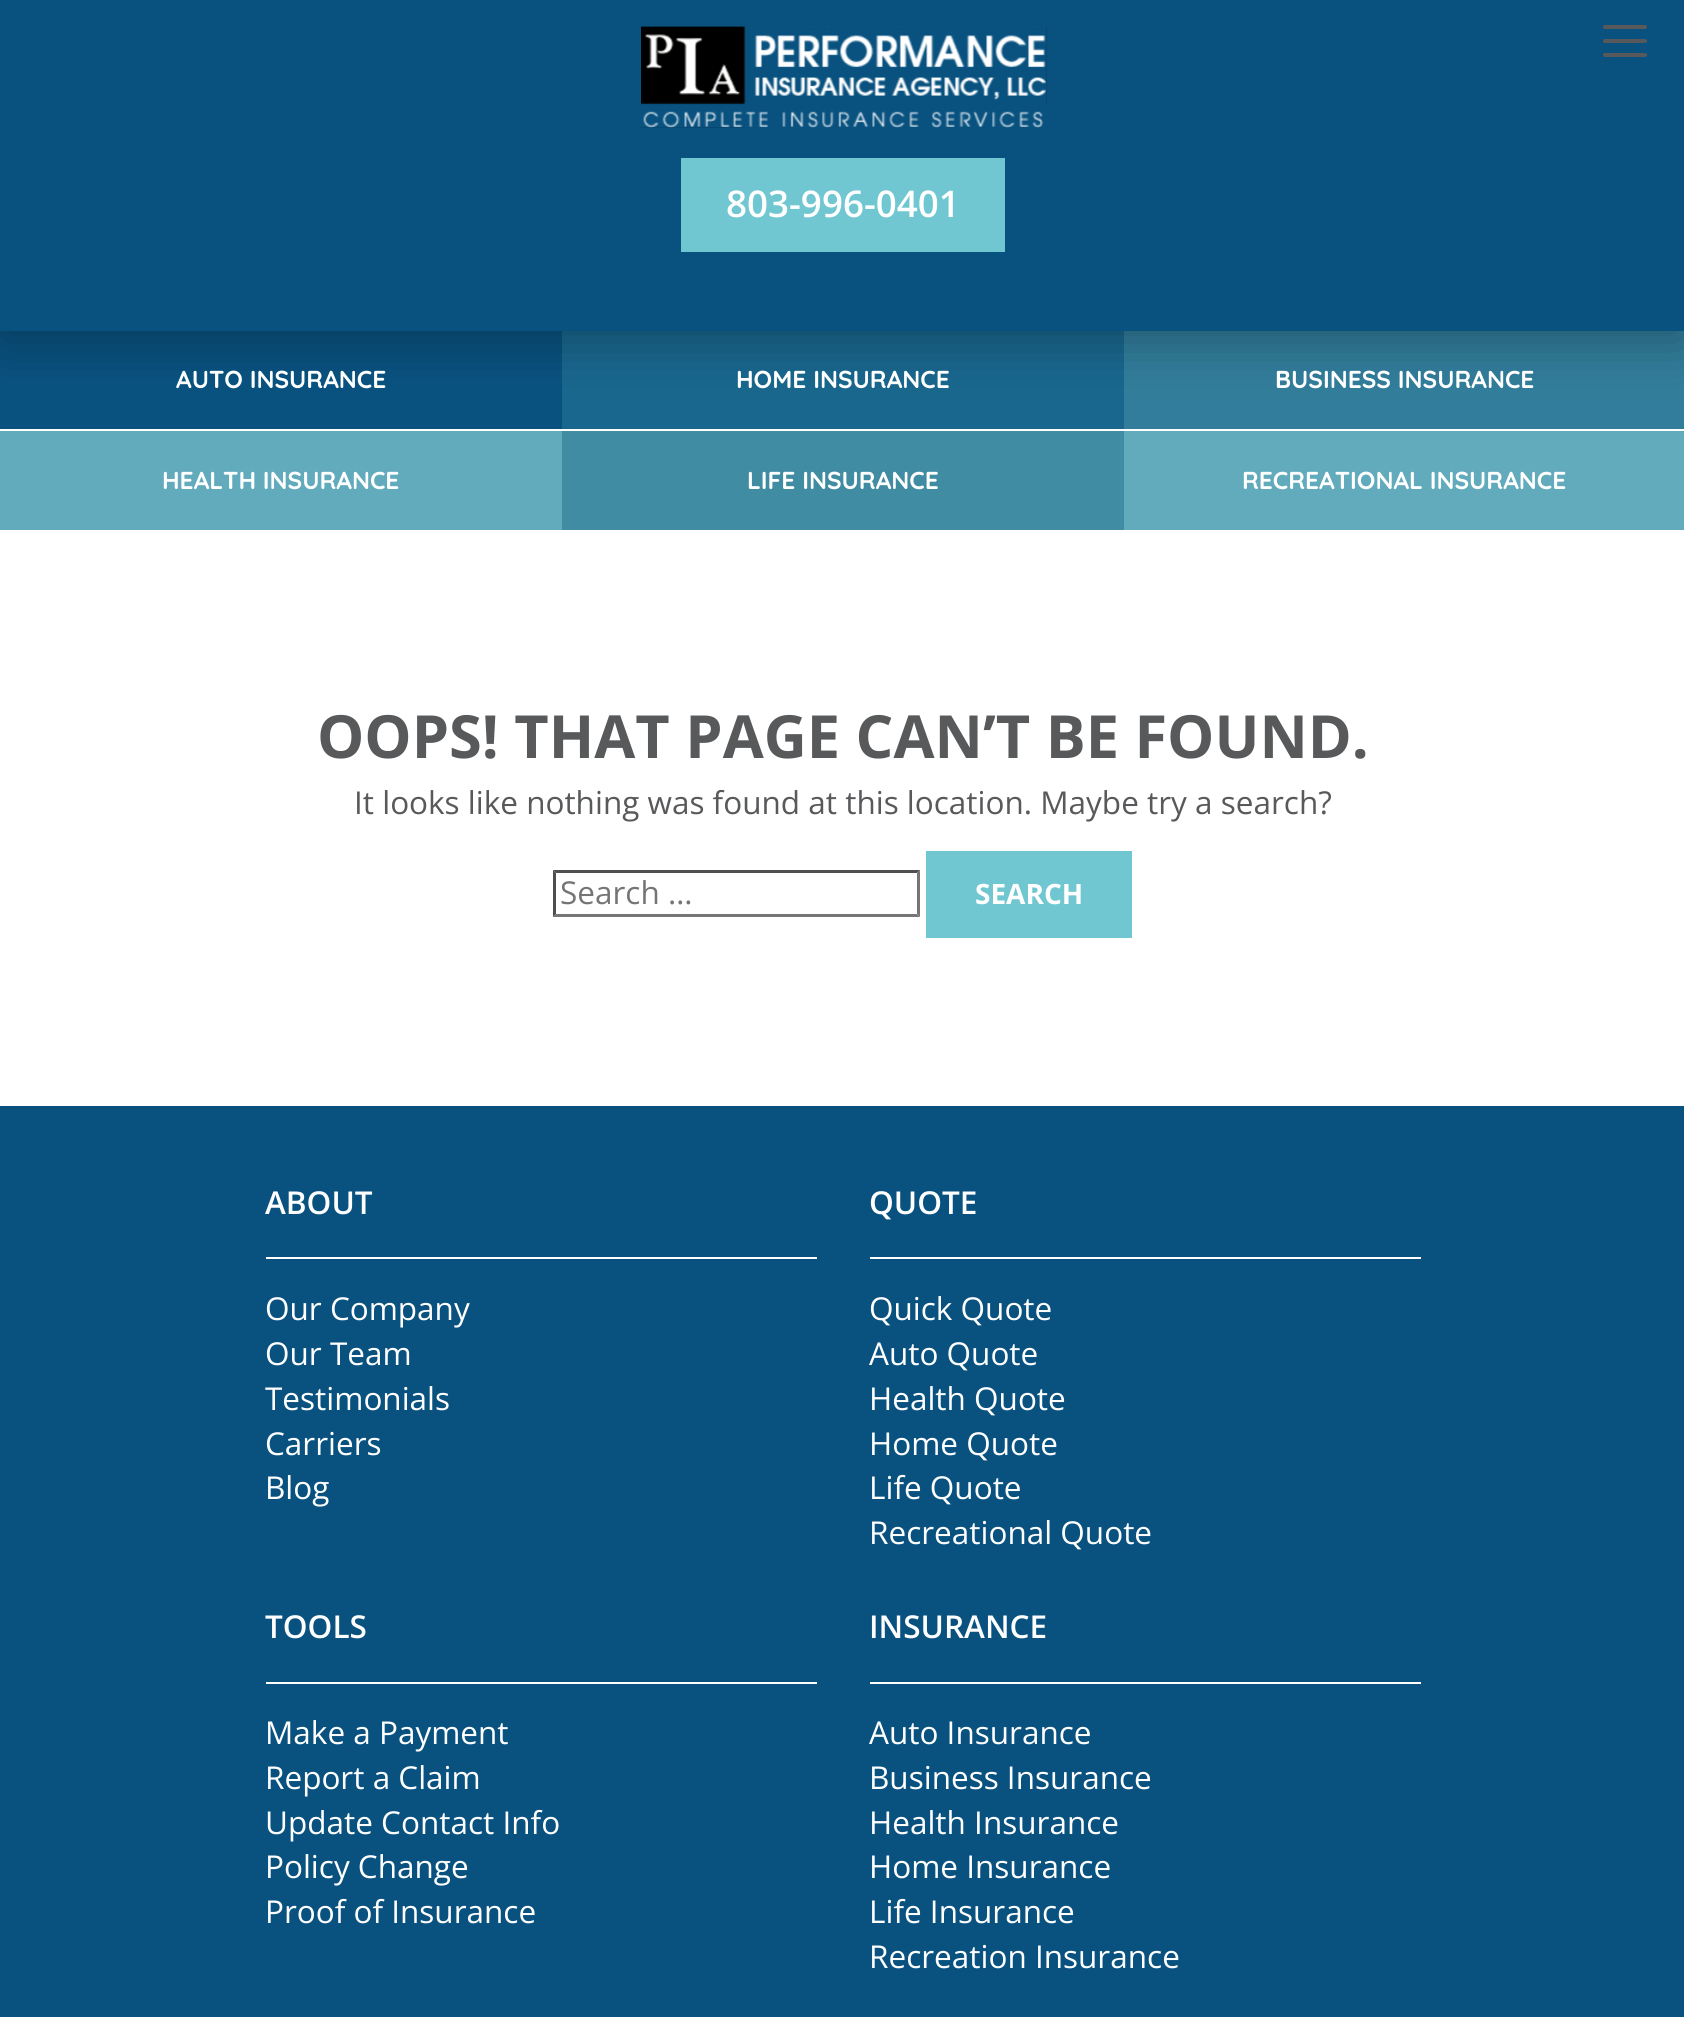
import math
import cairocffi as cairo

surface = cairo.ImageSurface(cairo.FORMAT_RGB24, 1684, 2017)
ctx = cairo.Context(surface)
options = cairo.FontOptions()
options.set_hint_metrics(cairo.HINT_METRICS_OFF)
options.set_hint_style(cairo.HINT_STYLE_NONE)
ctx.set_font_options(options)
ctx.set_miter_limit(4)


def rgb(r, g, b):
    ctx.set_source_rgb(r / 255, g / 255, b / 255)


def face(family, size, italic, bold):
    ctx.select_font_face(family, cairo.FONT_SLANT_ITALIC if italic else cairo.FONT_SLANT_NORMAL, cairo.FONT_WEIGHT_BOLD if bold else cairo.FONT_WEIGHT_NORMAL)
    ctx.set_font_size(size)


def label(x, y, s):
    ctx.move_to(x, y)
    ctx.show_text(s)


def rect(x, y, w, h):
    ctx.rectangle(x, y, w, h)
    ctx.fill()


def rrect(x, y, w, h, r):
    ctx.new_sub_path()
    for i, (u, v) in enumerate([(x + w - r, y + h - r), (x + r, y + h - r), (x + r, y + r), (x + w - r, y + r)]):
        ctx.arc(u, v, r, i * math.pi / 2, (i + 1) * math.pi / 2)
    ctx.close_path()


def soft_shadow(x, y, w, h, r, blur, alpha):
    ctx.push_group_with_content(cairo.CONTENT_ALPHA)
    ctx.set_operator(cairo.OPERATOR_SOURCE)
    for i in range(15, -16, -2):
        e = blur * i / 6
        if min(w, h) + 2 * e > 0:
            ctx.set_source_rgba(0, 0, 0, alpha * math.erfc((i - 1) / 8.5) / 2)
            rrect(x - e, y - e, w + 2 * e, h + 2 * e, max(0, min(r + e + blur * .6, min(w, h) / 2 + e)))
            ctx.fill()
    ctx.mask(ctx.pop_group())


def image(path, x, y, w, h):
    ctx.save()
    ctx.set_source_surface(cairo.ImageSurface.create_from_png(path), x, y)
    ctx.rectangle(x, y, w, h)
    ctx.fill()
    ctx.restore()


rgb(255, 255, 255)
ctx.paint()
rgb(9, 82, 128)
rect(0, 331, 562, 98)
rgb(25, 103, 142)
rect(562, 331, 562, 98)
rgb(49, 125, 155)
rect(1124, 331, 560, 98)
rgb(0, 0, 0)
soft_shadow(0, 9, 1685, 331, 0, 26, 0.3)
rgb(9, 82, 128)
rect(0, 0, 1684, 331)
rgb(88, 89, 91)
rrect(1603, 25, 44, 4, 2)
ctx.fill()
rrect(1603, 39, 44, 4, 2)
ctx.fill()
rrect(1603, 53, 44, 4, 2)
ctx.fill()
image('image0.png', 641, 26, 406, 102)
rgb(113, 199, 209)
rect(681, 158, 324, 94)
face('Open Sans SemiBold', 36.75, 0, 0)
rgb(255, 255, 255)
label(726, 217, '803-996-0401')
face('Quicksand', 24.5, 0, 1)
label(176, 388, 'AUTO INSURANCE')
label(736, 388, 'HOME INSURANCE')
label(1275, 388, 'BUSINESS INSURANCE')
rgb(97, 171, 188)
rect(0, 431, 562, 99)
rgb(255, 255, 255)
label(162, 489, 'HEALTH INSURANCE')
rgb(64, 140, 163)
rect(562, 431, 562, 99)
rgb(255, 255, 255)
label(747, 489, 'LIFE INSURANCE')
rgb(97, 171, 188)
rect(1124, 431, 560, 99)
rgb(255, 255, 255)
label(1242, 489, 'RECREATIONAL INSURANCE')
face('Open Sans', 59.5, 0, 1)
rgb(88, 89, 91)
label(317, 758, 'OOPS! THAT PAGE CAN’T BE FOUND.')
face('Open Sans', 31.5, 0, 0)
label(354, 814, 'It looks like nothing was found at this location. Maybe try a search?')
rgb(79, 79, 79)
ctx.new_path()
ctx.move_to(553, 870)
ctx.line_to(920, 870)
ctx.line_to(917, 873)
ctx.line_to(556, 873)
ctx.close_path()
ctx.fill()
rgb(118, 118, 118)
ctx.new_path()
ctx.move_to(920, 870)
ctx.line_to(920, 917)
ctx.line_to(917, 914)
ctx.line_to(917, 873)
ctx.close_path()
ctx.fill()
ctx.new_path()
ctx.move_to(920, 917)
ctx.line_to(553, 917)
ctx.line_to(556, 914)
ctx.line_to(917, 914)
ctx.close_path()
ctx.fill()
rgb(79, 79, 79)
ctx.new_path()
ctx.move_to(553, 917)
ctx.line_to(553, 870)
ctx.line_to(556, 873)
ctx.line_to(556, 914)
ctx.close_path()
ctx.fill()
rgb(117, 117, 117)
label(560, 904, 'Search …')
rgb(113, 199, 209)
rect(926, 851, 206, 87)
face('Open Sans', 28, 0, 1)
rgb(255, 255, 255)
label(975, 904, 'SEARCH')
rgb(9, 82, 128)
rect(0, 1106, 1684, 911)
rgb(255, 255, 255)
rect(266, 1257, 551, 2)
face('Open Sans SemiBold', 31.5, 0, 0)
label(265, 1214, 'ABOUT')
face('Open Sans', 31.5, 0, 0)
label(265, 1320, 'Our Company')
label(265, 1365, 'Our Team')
label(265, 1410, 'Testimonials')
label(265, 1455, 'Carriers')
label(265, 1499, 'Blog')
rect(870, 1257, 551, 2)
face('Open Sans SemiBold', 31.5, 0, 0)
label(869, 1214, 'QUOTE')
face('Open Sans', 31.5, 0, 0)
label(869, 1320, 'Quick Quote')
label(869, 1365, 'Auto Quote')
label(869, 1410, 'Health Quote')
label(869, 1455, 'Home Quote')
label(869, 1499, 'Life Quote')
label(869, 1544, 'Recreational Quote')
rect(266, 1682, 551, 2)
face('Open Sans SemiBold', 31.5, 0, 0)
label(265, 1638, 'TOOLS')
face('Open Sans', 31.5, 0, 0)
label(265, 1744, 'Make a Payment')
label(265, 1789, 'Report a Claim')
label(265, 1834, 'Update Contact Info')
label(265, 1878, 'Policy Change')
label(265, 1923, 'Proof of Insurance')
rect(870, 1682, 551, 2)
face('Open Sans SemiBold', 31.5, 0, 0)
label(869, 1638, 'INSURANCE')
face('Open Sans', 31.5, 0, 0)
label(869, 1744, 'Auto Insurance')
label(869, 1789, 'Business Insurance')
label(869, 1834, 'Health Insurance')
label(869, 1878, 'Home Insurance')
label(869, 1923, 'Life Insurance')
label(869, 1968, 'Recreation Insurance')
surface.write_to_png('render.png')
